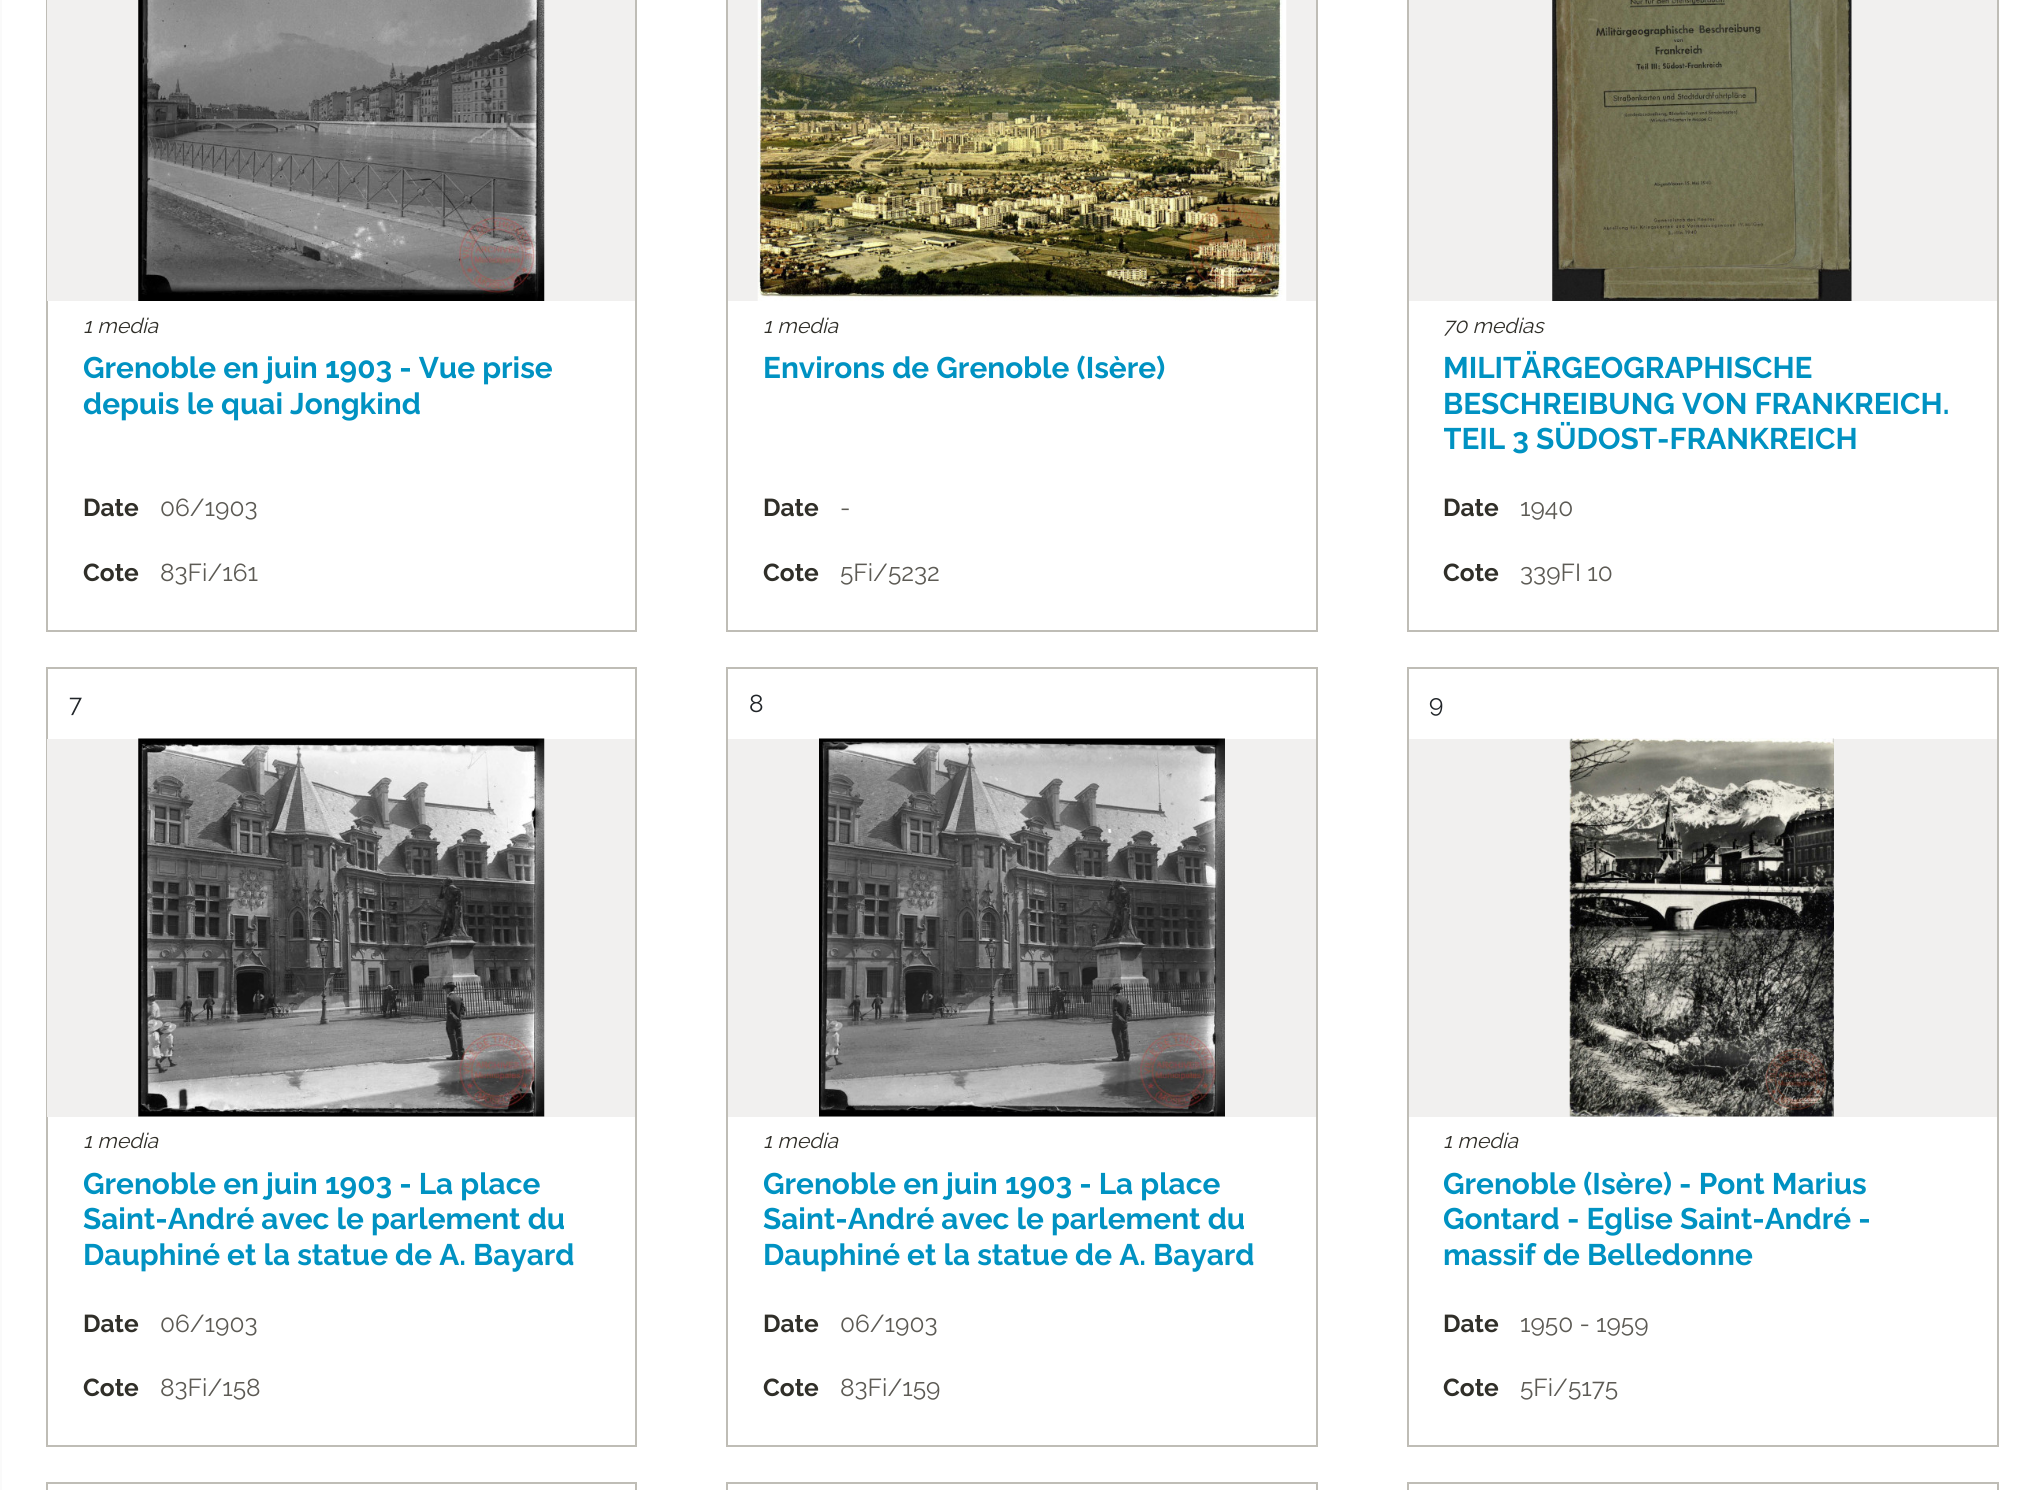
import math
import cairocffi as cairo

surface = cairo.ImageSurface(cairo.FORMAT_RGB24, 2042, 1490)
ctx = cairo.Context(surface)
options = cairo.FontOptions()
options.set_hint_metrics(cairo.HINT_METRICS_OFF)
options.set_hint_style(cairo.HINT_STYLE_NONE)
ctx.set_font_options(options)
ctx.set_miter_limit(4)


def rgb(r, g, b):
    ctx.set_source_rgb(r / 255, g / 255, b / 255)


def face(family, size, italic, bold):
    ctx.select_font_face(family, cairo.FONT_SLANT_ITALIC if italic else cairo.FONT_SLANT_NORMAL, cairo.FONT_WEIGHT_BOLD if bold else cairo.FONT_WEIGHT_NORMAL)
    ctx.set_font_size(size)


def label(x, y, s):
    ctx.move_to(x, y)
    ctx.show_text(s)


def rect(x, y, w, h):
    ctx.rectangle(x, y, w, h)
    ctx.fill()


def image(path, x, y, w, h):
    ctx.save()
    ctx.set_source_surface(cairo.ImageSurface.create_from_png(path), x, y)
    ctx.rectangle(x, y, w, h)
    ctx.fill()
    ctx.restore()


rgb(255, 255, 255)
ctx.paint()
rgb(250, 250, 250)
rect(0, 0, 2, 1490)
ctx.rectangle(47, -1, 589, 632)
rgb(191, 189, 182)
ctx.stroke()
rgb(241, 240, 239)
rect(47, 0, 588, 301)
image('image0.png', 138, 0, 407, 301)
face('Raleway', 21, 1, 0)
rgb(48, 47, 41)
label(83, 333, '1 media')
face('Raleway', 29.75, 0, 1)
rgb(0, 146, 194)
label(83, 378, 'Grenoble en juin 1903 - Vue prise')
label(83, 414, 'depuis le quai Jongkind')
face('Raleway', 24.5, 0, 1)
rgb(48, 47, 41)
label(83, 516, 'Date')
face('Raleway', 24.5, 0, 0)
rgb(92, 90, 84)
label(160, 516, '06/1903')
face('Raleway', 24.5, 0, 1)
rgb(48, 47, 41)
label(83, 581, 'Cote')
face('Raleway', 24.5, 0, 0)
rgb(92, 90, 84)
label(160, 581, '83Fi/161')
ctx.rectangle(727, -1, 590, 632)
rgb(191, 189, 182)
ctx.stroke()
rgb(241, 240, 239)
rect(728, 0, 588, 301)
image('image1.png', 757, 0, 530, 301)
face('Raleway', 21, 1, 0)
rgb(48, 47, 41)
label(763, 333, '1 media')
face('Raleway', 29.75, 0, 1)
rgb(0, 146, 194)
label(763, 378, 'Environs de Grenoble (Isère)')
face('Raleway', 24.5, 0, 1)
rgb(48, 47, 41)
label(763, 516, 'Date')
face('Raleway', 24.5, 0, 0)
rgb(92, 90, 84)
label(840, 516, '-')
face('Raleway', 24.5, 0, 1)
rgb(48, 47, 41)
label(763, 581, 'Cote')
face('Raleway', 24.5, 0, 0)
rgb(92, 90, 84)
label(840, 581, '5Fi/5232')
ctx.rectangle(1408, -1, 590, 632)
rgb(191, 189, 182)
ctx.stroke()
rgb(241, 240, 239)
rect(1409, 0, 588, 301)
image('image2.png', 1552, 0, 300, 301)
face('Raleway', 21, 1, 0)
rgb(48, 47, 41)
label(1443, 333, '70 medias')
face('Raleway', 29.75, 0, 1)
rgb(0, 146, 194)
label(1443, 378, 'MILITÄRGEOGRAPHISCHE')
label(1443, 414, 'BESCHREIBUNG VON FRANKREICH.')
ctx.save()
ctx.rectangle(1444, 350, 518, 109)
ctx.clip()
label(1443, 449, 'TEIL 3 SÜDOST-FRANKREICH')
ctx.restore()
face('Raleway', 24.5, 0, 1)
rgb(48, 47, 41)
label(1443, 516, 'Date')
face('Raleway', 24.5, 0, 0)
rgb(92, 90, 84)
label(1520, 516, '1940')
face('Raleway', 24.5, 0, 1)
rgb(48, 47, 41)
label(1443, 581, 'Cote')
face('Raleway', 24.5, 0, 0)
rgb(92, 90, 84)
label(1520, 581, '339FI 10')
ctx.rectangle(47, 668, 589, 778)
rgb(191, 189, 182)
ctx.stroke()
rgb(33, 37, 41)
label(69, 712, '7')
rgb(241, 240, 239)
rect(47, 739, 588, 378)
image('image3.png', 138, 738, 407, 379)
face('Raleway', 21, 1, 0)
rgb(48, 47, 41)
label(83, 1148, '1 media')
face('Raleway', 29.75, 0, 1)
rgb(0, 146, 194)
label(83, 1194, 'Grenoble en juin 1903 - La place')
label(83, 1229, 'Saint-André avec le parlement du')
label(83, 1265, 'Dauphiné et la statue de A. Bayard')
face('Raleway', 24.5, 0, 1)
rgb(48, 47, 41)
label(83, 1332, 'Date')
face('Raleway', 24.5, 0, 0)
rgb(92, 90, 84)
label(160, 1332, '06/1903')
face('Raleway', 24.5, 0, 1)
rgb(48, 47, 41)
label(83, 1396, 'Cote')
face('Raleway', 24.5, 0, 0)
rgb(92, 90, 84)
label(160, 1396, '83Fi/158')
ctx.rectangle(727, 668, 590, 778)
rgb(191, 189, 182)
ctx.stroke()
rgb(33, 37, 41)
label(749, 712, '8')
rgb(241, 240, 239)
rect(728, 739, 588, 378)
image('image4.png', 819, 738, 406, 379)
face('Raleway', 21, 1, 0)
rgb(48, 47, 41)
label(763, 1148, '1 media')
face('Raleway', 29.75, 0, 1)
rgb(0, 146, 194)
label(763, 1194, 'Grenoble en juin 1903 - La place')
label(763, 1229, 'Saint-André avec le parlement du')
label(763, 1265, 'Dauphiné et la statue de A. Bayard')
face('Raleway', 24.5, 0, 1)
rgb(48, 47, 41)
label(763, 1332, 'Date')
face('Raleway', 24.5, 0, 0)
rgb(92, 90, 84)
label(840, 1332, '06/1903')
face('Raleway', 24.5, 0, 1)
rgb(48, 47, 41)
label(763, 1396, 'Cote')
face('Raleway', 24.5, 0, 0)
rgb(92, 90, 84)
label(840, 1396, '83Fi/159')
ctx.rectangle(1408, 668, 590, 778)
rgb(191, 189, 182)
ctx.stroke()
rgb(33, 37, 41)
label(1429, 712, '9')
rgb(241, 240, 239)
rect(1409, 739, 588, 378)
image('image5.png', 1569, 738, 265, 379)
face('Raleway', 21, 1, 0)
rgb(48, 47, 41)
label(1443, 1148, '1 media')
face('Raleway', 29.75, 0, 1)
rgb(0, 146, 194)
label(1443, 1194, 'Grenoble (Isère) - Pont Marius')
label(1443, 1229, 'Gontard - Eglise Saint-André -')
label(1443, 1265, 'massif de Belledonne')
face('Raleway', 24.5, 0, 1)
rgb(48, 47, 41)
label(1443, 1332, 'Date')
face('Raleway', 24.5, 0, 0)
rgb(92, 90, 84)
label(1520, 1332, '1950 - 1959')
face('Raleway', 24.5, 0, 1)
rgb(48, 47, 41)
label(1443, 1396, 'Cote')
face('Raleway', 24.5, 0, 0)
rgb(92, 90, 84)
label(1520, 1396, '5Fi/5175')
ctx.rectangle(47, 1483, 589, 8)
rgb(191, 189, 182)
ctx.stroke()
ctx.rectangle(727, 1483, 590, 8)
ctx.stroke()
ctx.rectangle(1408, 1483, 590, 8)
ctx.stroke()
surface.write_to_png('render.png')
